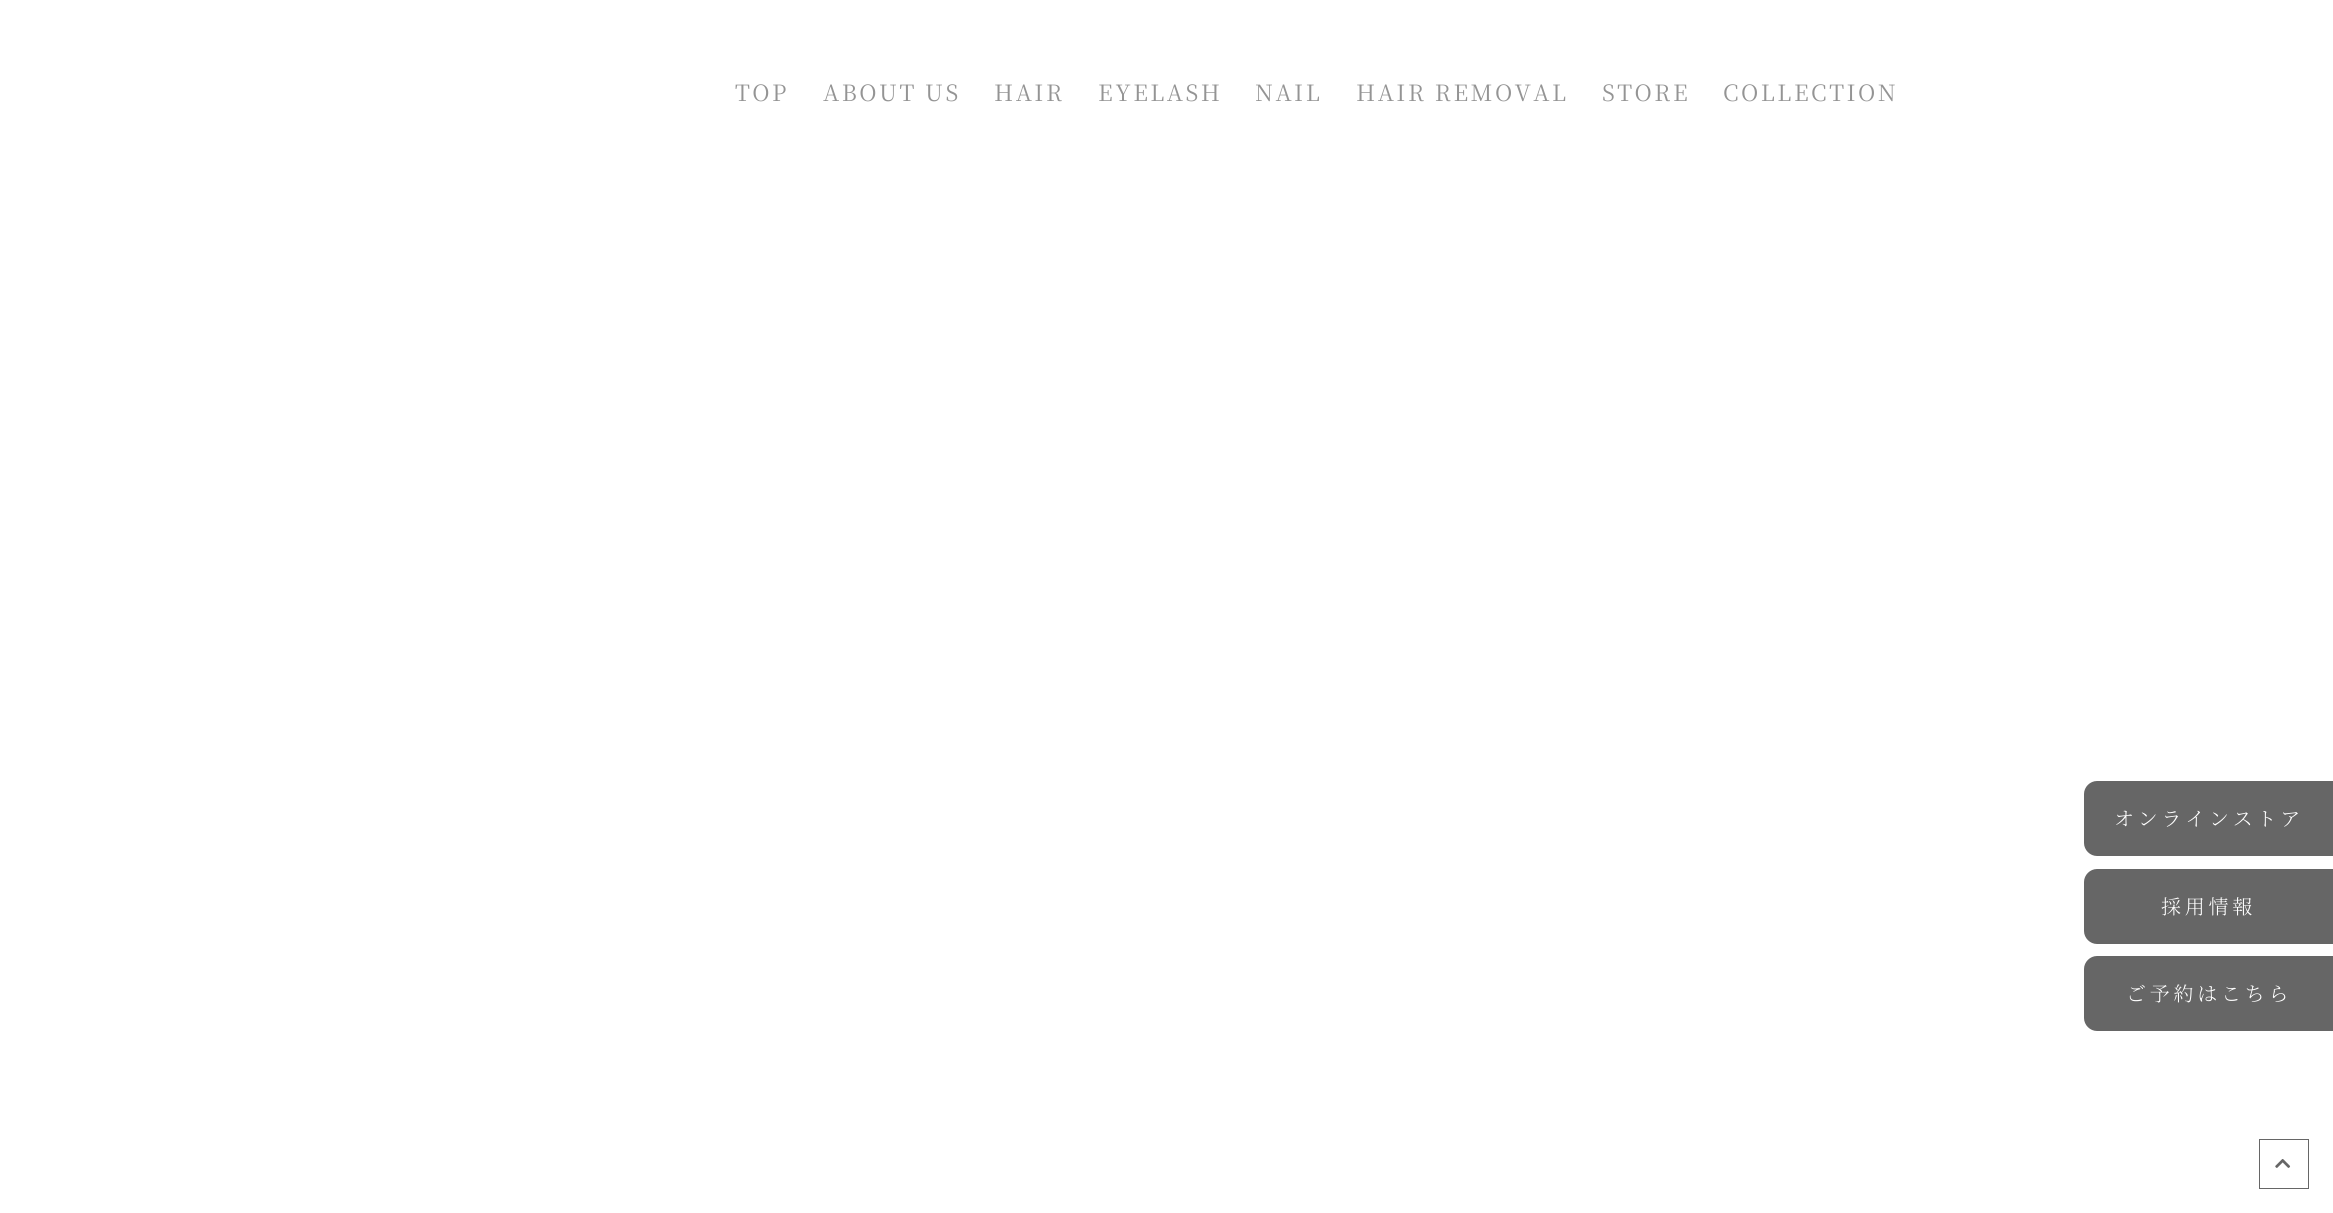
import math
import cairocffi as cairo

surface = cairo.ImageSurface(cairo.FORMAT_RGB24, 2333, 1213)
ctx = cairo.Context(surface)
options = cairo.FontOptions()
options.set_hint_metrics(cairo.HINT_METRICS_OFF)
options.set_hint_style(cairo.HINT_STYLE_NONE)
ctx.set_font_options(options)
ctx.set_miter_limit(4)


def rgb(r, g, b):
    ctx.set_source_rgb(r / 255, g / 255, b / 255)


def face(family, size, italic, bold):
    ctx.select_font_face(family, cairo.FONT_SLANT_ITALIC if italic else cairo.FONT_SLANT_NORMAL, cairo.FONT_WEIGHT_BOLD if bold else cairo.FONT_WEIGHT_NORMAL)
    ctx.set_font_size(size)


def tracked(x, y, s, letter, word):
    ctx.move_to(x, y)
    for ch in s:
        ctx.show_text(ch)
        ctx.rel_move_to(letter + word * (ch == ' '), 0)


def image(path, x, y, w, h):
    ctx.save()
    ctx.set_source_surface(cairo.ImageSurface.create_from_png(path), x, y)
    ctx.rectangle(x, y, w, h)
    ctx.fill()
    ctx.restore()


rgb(255, 255, 255)
ctx.paint()
face('Noto Serif JP', 22.5, 0, 0)
rgb(148, 148, 148)
tracked(735, 101, 'TOP', 2.5, 0)
tracked(823, 101, 'ABOUT US', 2.5, 0)
tracked(994, 101, 'HAIR', 2.5, 0)
tracked(1098, 101, 'EYELASH', 2.5, 0)
tracked(1255, 101, 'NAIL', 2.5, 0)
tracked(1356, 101, 'HAIR REMOVAL', 2.5, 0)
tracked(1602, 101, 'STORE', 2.5, 0)
tracked(1723, 101, 'COLLECTION', 2.5, 0)
rgb(102, 102, 102)
ctx.new_path()
ctx.move_to(2097, 781)
ctx.line_to(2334, 781)
ctx.line_to(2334, 856)
ctx.line_to(2097, 856)
ctx.curve_to(2090, 856, 2084, 850, 2084, 843)
ctx.line_to(2084, 794)
ctx.curve_to(2084, 787, 2090, 781, 2097, 781)
ctx.close_path()
ctx.fill()
face('Noto Serif JP Light', 20, 0, 0)
rgb(255, 255, 255)
tracked(2114, 826, 'オンラインストア', 3.75, 0)
rgb(102, 102, 102)
ctx.new_path()
ctx.move_to(2097, 869)
ctx.line_to(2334, 869)
ctx.line_to(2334, 944)
ctx.line_to(2097, 944)
ctx.curve_to(2090, 944, 2084, 938, 2084, 931)
ctx.line_to(2084, 882)
ctx.curve_to(2084, 875, 2090, 869, 2097, 869)
ctx.close_path()
ctx.fill()
rgb(255, 255, 255)
tracked(2161, 914, '採用情報', 3.75, 0)
rgb(102, 102, 102)
ctx.new_path()
ctx.move_to(2097, 956)
ctx.line_to(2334, 956)
ctx.line_to(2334, 1031)
ctx.line_to(2097, 1031)
ctx.curve_to(2090, 1031, 2084, 1025, 2084, 1018)
ctx.line_to(2084, 969)
ctx.curve_to(2084, 962, 2090, 956, 2097, 956)
ctx.close_path()
ctx.fill()
rgb(255, 255, 255)
tracked(2126, 1001, 'ご予約はこちら', 3.75, 0)
ctx.rectangle(2259.5, 1139.5, 49, 49)
rgb(102, 102, 102)
ctx.set_line_width(1)
ctx.stroke()
image('image0.png', 2275, 1159, 16, 9)
surface.write_to_png('render.png')
